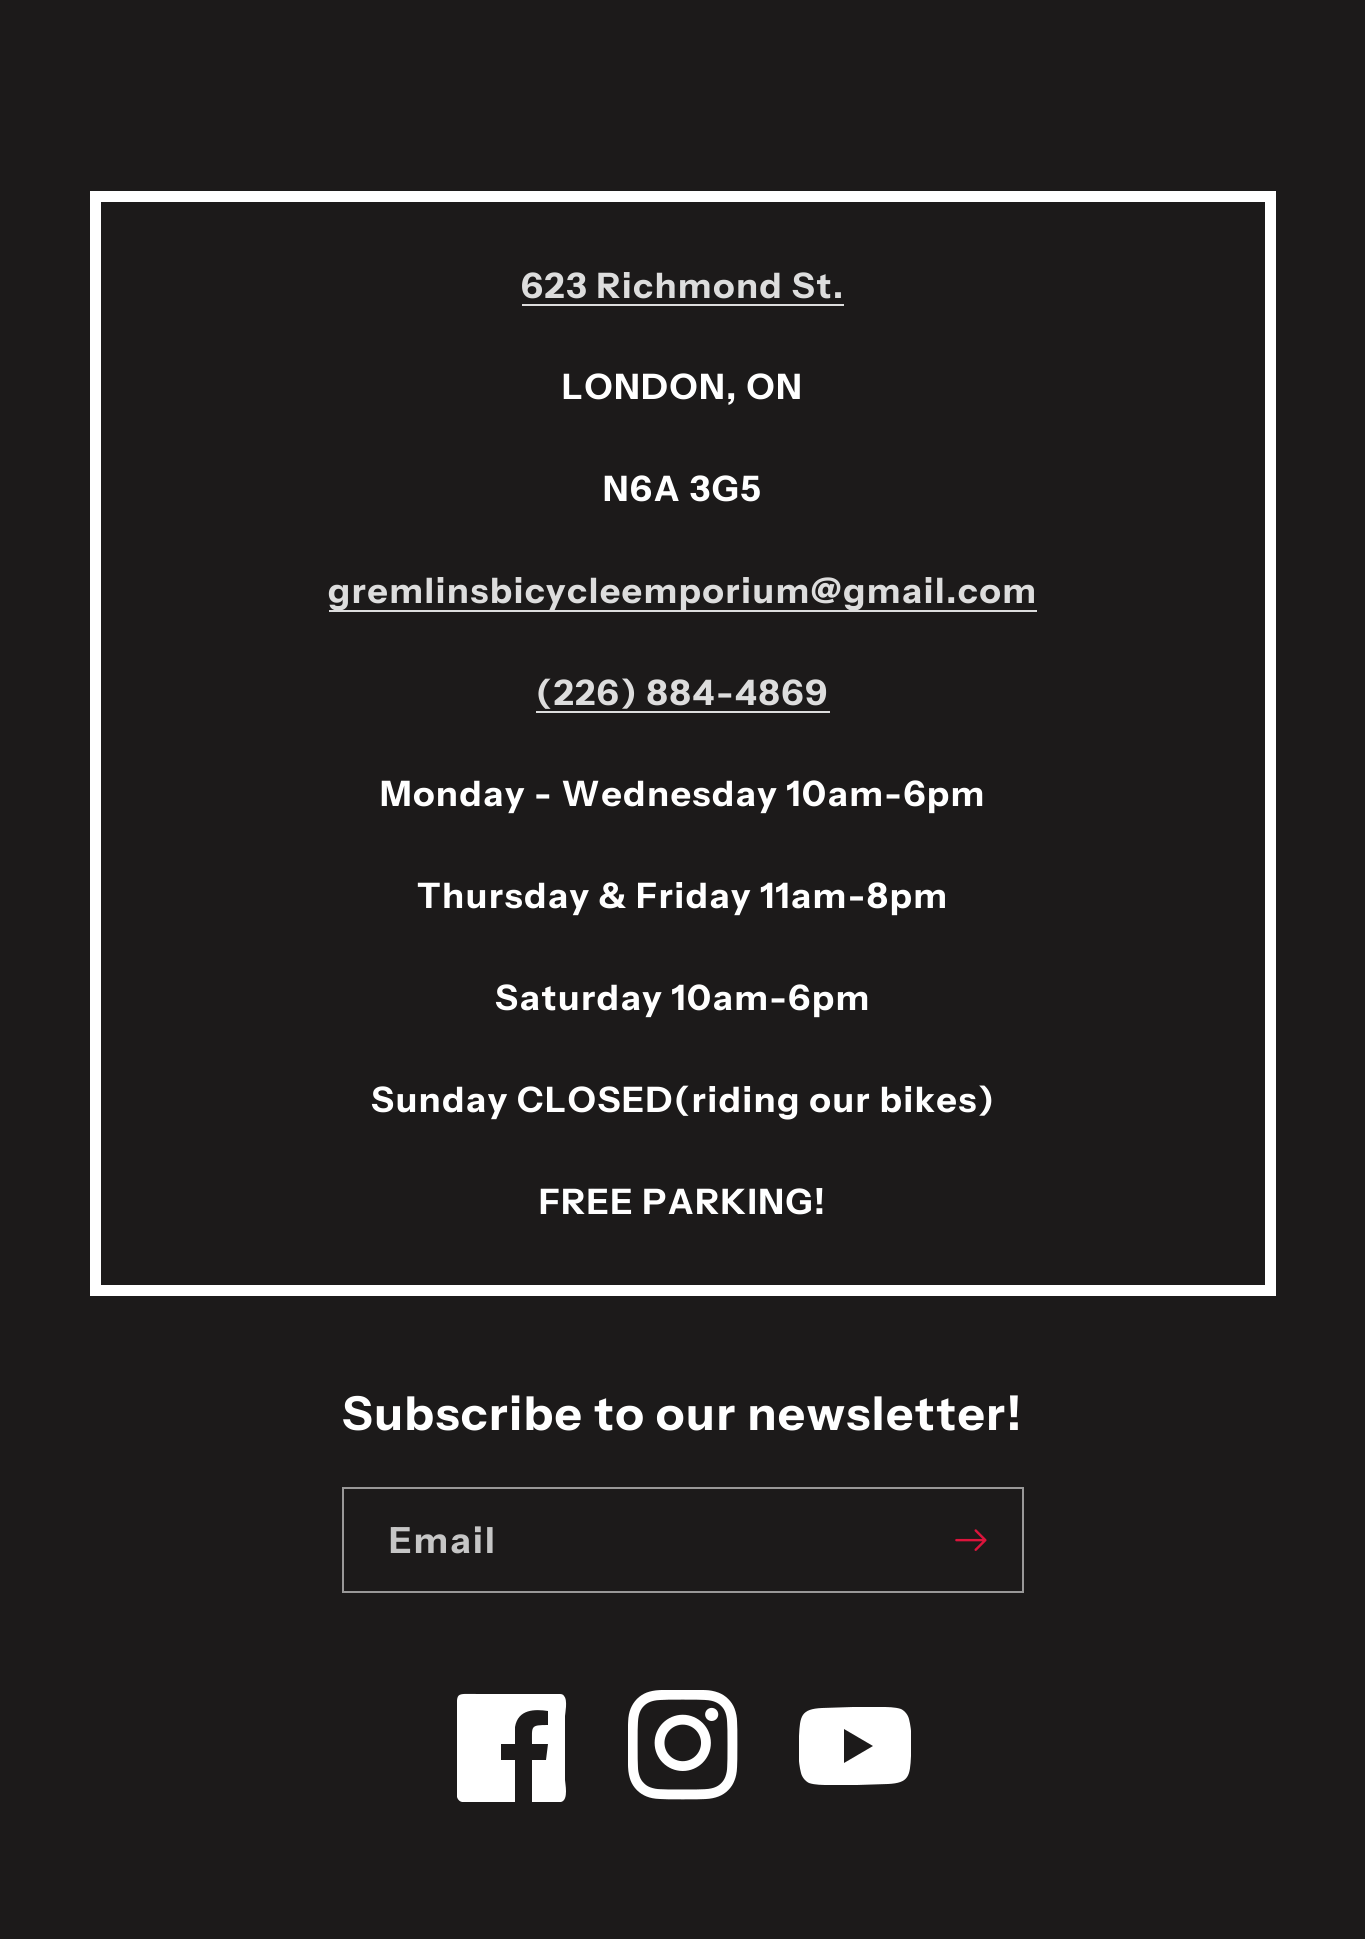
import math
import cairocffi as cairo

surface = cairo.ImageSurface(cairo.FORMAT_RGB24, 1365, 1939)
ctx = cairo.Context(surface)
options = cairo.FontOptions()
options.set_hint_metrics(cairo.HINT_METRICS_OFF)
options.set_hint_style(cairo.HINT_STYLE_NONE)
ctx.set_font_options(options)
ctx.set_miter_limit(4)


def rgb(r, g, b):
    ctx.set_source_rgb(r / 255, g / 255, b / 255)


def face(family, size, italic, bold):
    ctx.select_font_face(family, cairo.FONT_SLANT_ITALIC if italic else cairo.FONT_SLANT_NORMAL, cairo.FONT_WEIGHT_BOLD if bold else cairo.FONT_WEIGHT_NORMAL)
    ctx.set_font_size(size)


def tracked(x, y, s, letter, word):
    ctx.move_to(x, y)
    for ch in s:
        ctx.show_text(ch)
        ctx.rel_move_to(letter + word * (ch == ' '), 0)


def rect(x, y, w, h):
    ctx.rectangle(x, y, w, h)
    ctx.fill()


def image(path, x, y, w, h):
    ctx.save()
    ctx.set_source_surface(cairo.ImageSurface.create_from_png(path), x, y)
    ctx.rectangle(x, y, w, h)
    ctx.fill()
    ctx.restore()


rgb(28, 26, 26)
ctx.paint()
ctx.rectangle(95.5, 196.5, 1175, 1094)
rgb(255, 255, 255)
ctx.set_line_width(11)
ctx.stroke()
face('Instrument Sans', 35.1, 0, 1)
rgb(221, 221, 221)
tracked(521, 298, '623 Richmond St.', 1.75, 0)
rect(522, 304, 322, 2)
rgb(255, 255, 255)
tracked(562, 399, 'LONDON, ON', 1.75, 0)
tracked(603, 501, 'N6A 3G5', 1.75, 0)
rgb(221, 221, 221)
rect(329, 610, 708, 2)
tracked(328, 603, 'gremlinsbicycleemporium@gmail.com', 1.75, 0)
tracked(536, 705, '(226) 884-4869', 1.75, 0)
rect(536, 711, 294, 2)
rgb(255, 255, 255)
tracked(380, 806, 'Monday - Wednesday 10am-6pm', 1.75, 0)
tracked(417, 908, 'Thursday & Friday 11am-8pm', 1.75, 0)
tracked(495, 1010, 'Saturday 10am-6pm', 1.75, 0)
tracked(371, 1112, 'Sunday CLOSED(riding our bikes)', 1.75, 0)
tracked(539, 1214, 'FREE PARKING!', 1.75, 0)
face('Instrument Sans', 46.75, 0, 1)
tracked(342, 1430, 'Subscribe to our newsletter!', 1.75, 0)
ctx.rectangle(343, 1488, 680, 104)
rgb(153, 152, 152)
ctx.set_line_width(2)
ctx.stroke()
face('Instrument Sans', 36, 0, 1)
rgb(198, 198, 198)
tracked(389, 1553, 'Email', 2.25, 0)
image('image0.png', 955, 1529, 32, 22)
ctx.save()
ctx.rectangle(457, 1690, 112, 112)
ctx.clip()
rgb(255, 255, 255)
ctx.new_path()
ctx.move_to(559, 1694)
ctx.curve_to(561, 1694, 563, 1694, 564, 1696)
ctx.curve_to(568, 1700, 565, 1714, 565, 1716)
ctx.line_to(565, 1780)
ctx.curve_to(565, 1783, 569, 1800, 561, 1802)
ctx.line_to(532, 1802)
ctx.line_to(532, 1760)
ctx.line_to(546, 1760)
ctx.line_to(548, 1744)
ctx.line_to(532, 1744)
ctx.curve_to(532, 1726, 530, 1725, 548, 1725)
ctx.line_to(548, 1711)
ctx.curve_to(535, 1709, 518, 1709, 515, 1727)
ctx.line_to(515, 1744)
ctx.line_to(501, 1744)
ctx.line_to(501, 1760)
ctx.line_to(515, 1760)
ctx.line_to(515, 1802)
ctx.line_to(462, 1802)
ctx.curve_to(453, 1800, 457, 1783, 457, 1780)
ctx.line_to(457, 1716)
ctx.curve_to(457, 1691, 454, 1694, 479, 1694)
ctx.close_path()
ctx.fill()
ctx.restore()
image('image1.png', 628, 1690, 110, 110)
ctx.save()
ctx.rectangle(799, 1690, 112, 112)
ctx.clip()
rgb(255, 255, 255)
ctx.new_path()
ctx.move_to(909, 1719)
ctx.curve_to(912, 1731, 912, 1744, 911, 1756)
ctx.curve_to(910, 1776, 909, 1783, 888, 1784)
ctx.line_to(857, 1785)
ctx.line_to(829, 1785)
ctx.curve_to(823, 1785, 815, 1785, 809, 1783)
ctx.curve_to(805, 1781, 802, 1777, 801, 1773)
ctx.curve_to(798, 1761, 798, 1748, 799, 1736)
ctx.curve_to(800, 1716, 801, 1709, 822, 1708)
ctx.line_to(853, 1707)
ctx.line_to(881, 1707)
ctx.curve_to(887, 1707, 895, 1707, 901, 1709)
ctx.curve_to(905, 1711, 908, 1715, 909, 1719)
ctx.close_path()
ctx.move_to(844, 1763)
ctx.line_to(873, 1746)
ctx.line_to(844, 1729)
ctx.close_path()
ctx.fill()
ctx.restore()
surface.write_to_png('render.png')
